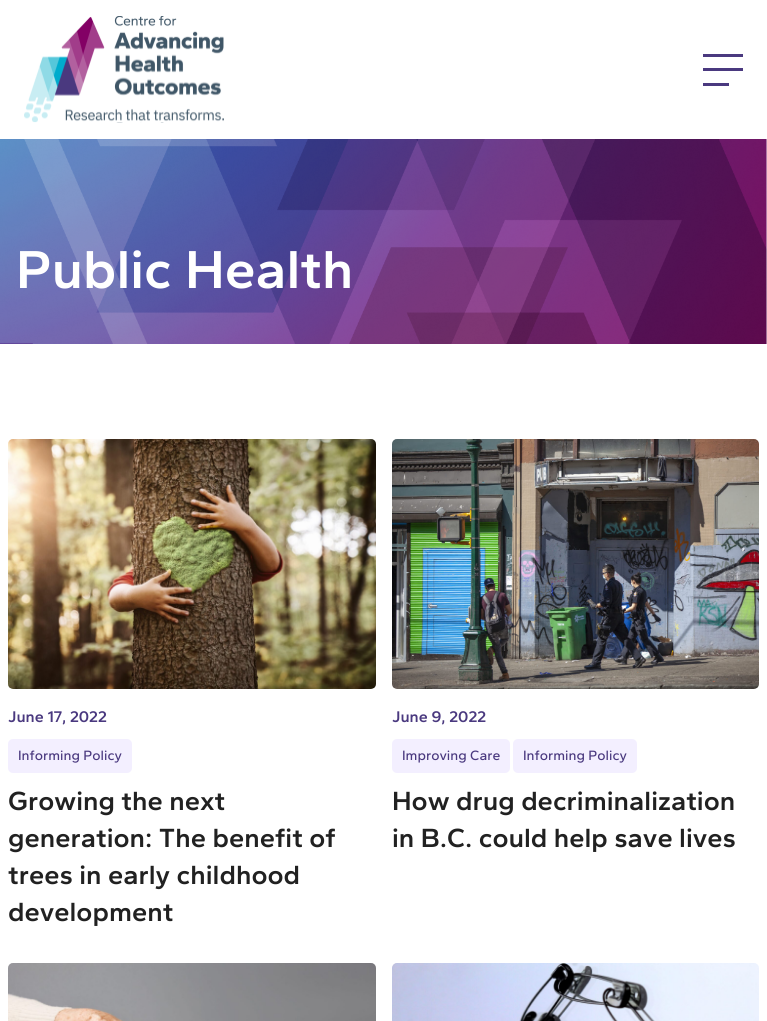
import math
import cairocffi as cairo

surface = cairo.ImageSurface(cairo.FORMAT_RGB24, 767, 1021)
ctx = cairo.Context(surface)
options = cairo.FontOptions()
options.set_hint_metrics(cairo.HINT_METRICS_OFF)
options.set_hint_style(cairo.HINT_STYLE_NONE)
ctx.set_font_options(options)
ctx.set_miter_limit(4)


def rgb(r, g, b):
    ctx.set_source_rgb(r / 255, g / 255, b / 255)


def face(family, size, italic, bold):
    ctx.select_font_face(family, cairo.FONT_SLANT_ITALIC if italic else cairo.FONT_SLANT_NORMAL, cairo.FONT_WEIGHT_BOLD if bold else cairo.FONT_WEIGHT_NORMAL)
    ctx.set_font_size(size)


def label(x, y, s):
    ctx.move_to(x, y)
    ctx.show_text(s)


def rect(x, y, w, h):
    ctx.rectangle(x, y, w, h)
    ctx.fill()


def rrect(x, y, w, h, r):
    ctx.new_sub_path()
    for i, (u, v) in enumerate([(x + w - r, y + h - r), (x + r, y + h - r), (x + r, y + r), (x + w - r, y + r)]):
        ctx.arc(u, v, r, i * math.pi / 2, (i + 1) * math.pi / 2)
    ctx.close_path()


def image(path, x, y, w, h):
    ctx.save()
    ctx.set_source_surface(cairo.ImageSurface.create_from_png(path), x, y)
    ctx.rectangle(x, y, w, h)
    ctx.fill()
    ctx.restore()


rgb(255, 255, 255)
ctx.paint()
image('image0.png', 24, 16, 200, 107)
rgb(74, 57, 127)
rect(703, 54, 40, 3)
rect(703, 68, 40, 3)
rect(703, 83, 26, 3)
image('image1.png', 0, 139, 767, 205)
face('Gantari SemiBold', 55.25, 0, 0)
rgb(255, 255, 255)
label(16, 288, 'Public Health')
image('image2.png', 8, 439, 368, 250)
face('Gantari SemiBold', 16, 0, 0)
rgb(74, 57, 127)
label(8, 722, 'June 17, 2022')
rgb(243, 239, 255)
rrect(8, 739, 124, 34, 5)
ctx.fill()
face('Gantari Medium', 14, 0, 0)
rgb(74, 57, 127)
label(18, 760, 'Informing Policy')
face('Gantari SemiBold', 27.25, 0, 0)
rgb(33, 33, 33)
label(8, 810, 'Growing the next')
label(8, 847, 'generation: The benefit of')
label(8, 884, 'trees in early childhood')
label(8, 921, 'development')
image('image3.png', 392, 439, 367, 250)
face('Gantari SemiBold', 16, 0, 0)
rgb(74, 57, 127)
label(392, 722, 'June 9, 2022')
rgb(243, 239, 255)
rrect(392, 739, 118, 34, 5)
ctx.fill()
face('Gantari Medium', 14, 0, 0)
rgb(74, 57, 127)
label(402, 760, 'Improving Care')
rgb(243, 239, 255)
rrect(513, 739, 124, 34, 5)
ctx.fill()
rgb(74, 57, 127)
label(523, 760, 'Informing Policy')
face('Gantari SemiBold', 27.25, 0, 0)
rgb(33, 33, 33)
label(392, 810, 'How drug decriminalization')
label(392, 847, 'in B.C. could help save lives')
image('image4.png', 8, 963, 368, 58)
image('image5.png', 392, 963, 367, 58)
surface.write_to_png('render.png')
